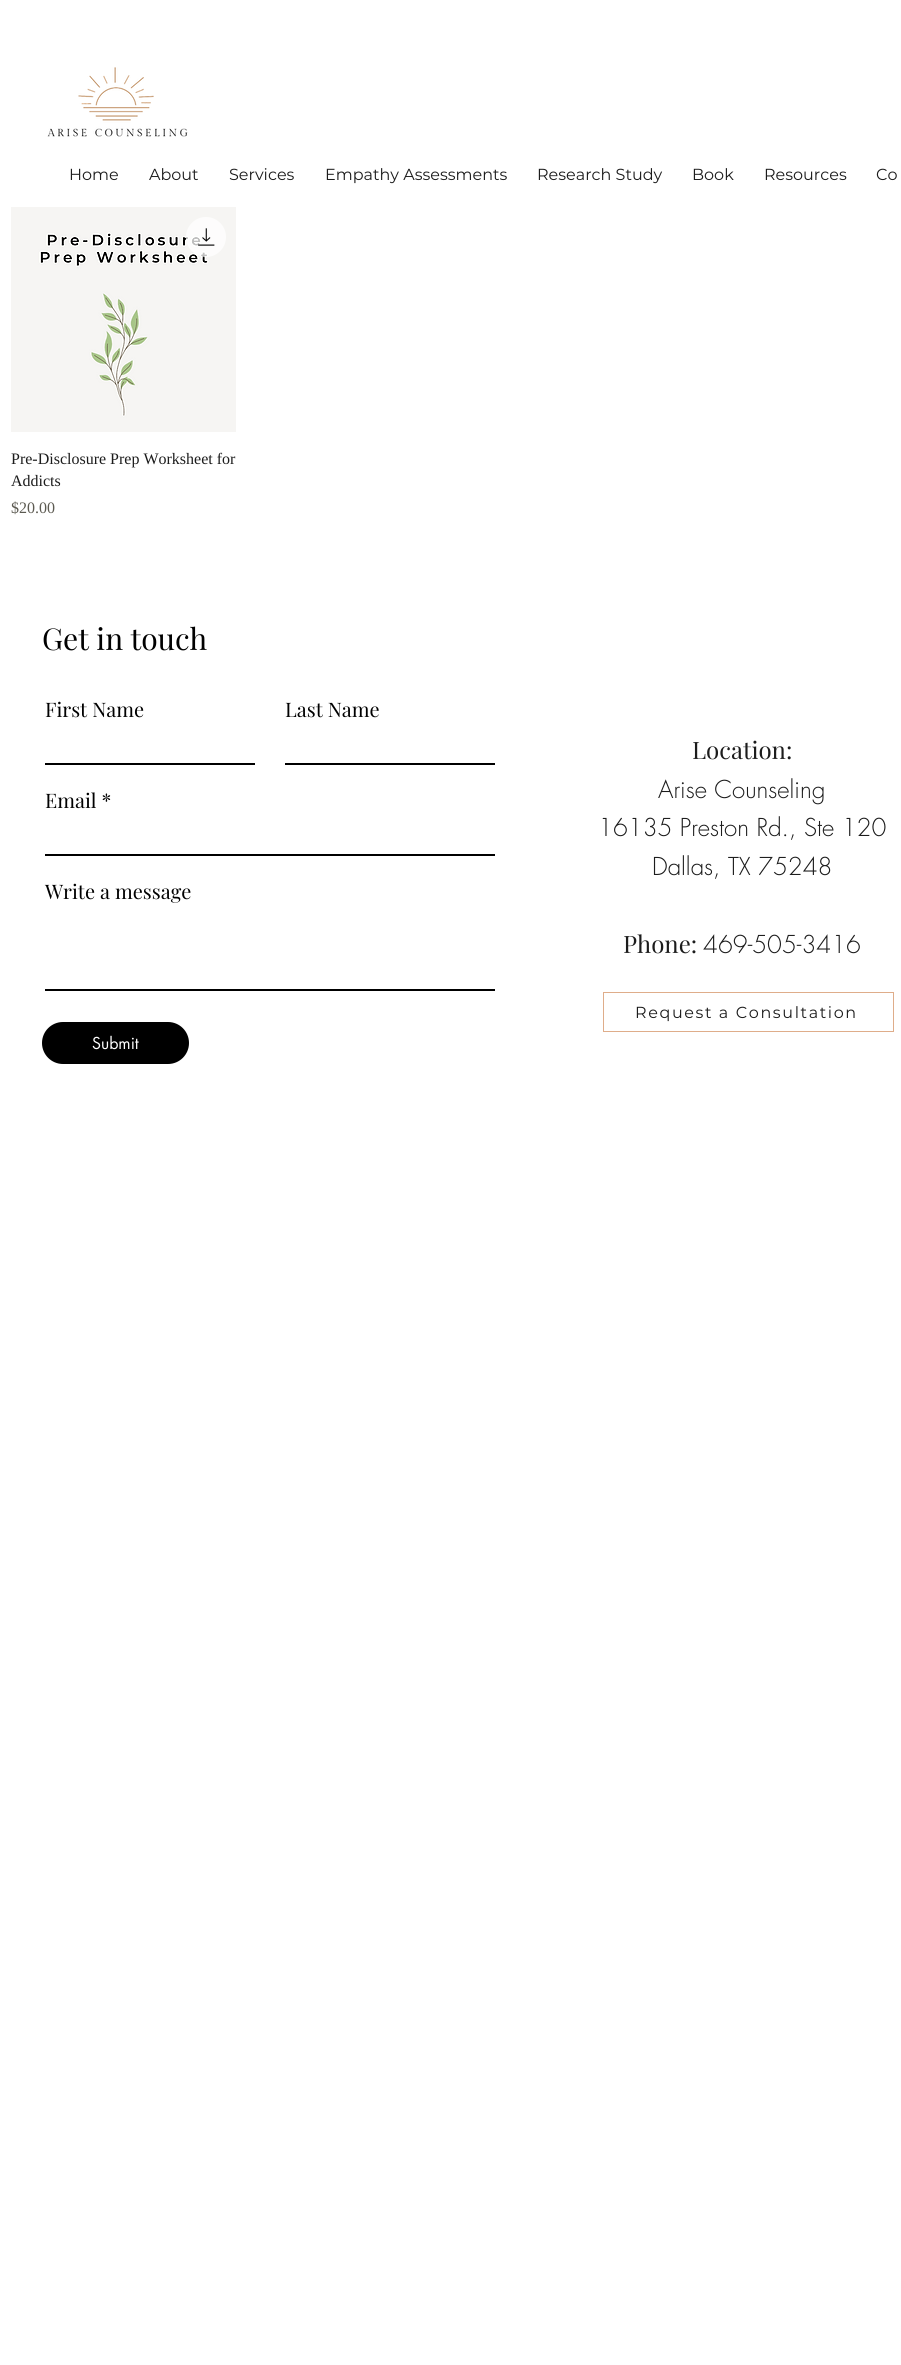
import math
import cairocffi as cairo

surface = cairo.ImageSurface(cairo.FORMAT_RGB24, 901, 2365)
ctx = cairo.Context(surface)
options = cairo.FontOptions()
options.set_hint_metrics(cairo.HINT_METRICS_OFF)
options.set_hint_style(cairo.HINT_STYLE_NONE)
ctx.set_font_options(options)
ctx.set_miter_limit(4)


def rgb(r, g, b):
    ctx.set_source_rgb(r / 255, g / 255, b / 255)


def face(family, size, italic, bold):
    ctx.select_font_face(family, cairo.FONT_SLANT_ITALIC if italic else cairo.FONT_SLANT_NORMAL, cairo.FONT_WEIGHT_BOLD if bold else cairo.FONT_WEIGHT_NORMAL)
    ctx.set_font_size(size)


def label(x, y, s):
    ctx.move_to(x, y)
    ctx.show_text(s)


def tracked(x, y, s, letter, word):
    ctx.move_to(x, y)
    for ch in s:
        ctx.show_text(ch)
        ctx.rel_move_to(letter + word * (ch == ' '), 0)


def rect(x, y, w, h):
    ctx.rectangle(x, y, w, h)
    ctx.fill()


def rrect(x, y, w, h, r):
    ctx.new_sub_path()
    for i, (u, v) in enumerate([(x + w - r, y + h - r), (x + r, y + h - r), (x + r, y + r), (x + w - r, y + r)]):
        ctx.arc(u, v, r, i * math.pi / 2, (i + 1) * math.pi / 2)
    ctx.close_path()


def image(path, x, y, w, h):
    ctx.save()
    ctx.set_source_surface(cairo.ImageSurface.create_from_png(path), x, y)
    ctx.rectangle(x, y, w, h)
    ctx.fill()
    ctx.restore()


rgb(255, 255, 255)
ctx.paint()
image('image0.png', 47, 67, 141, 70)
face('Montserrat', 16, 0, 0)
rgb(28, 28, 28)
label(69, 180, 'Home')
label(149, 180, 'About')
label(229, 180, 'Services')
label(325, 180, 'Empathy Assessments')
label(537, 180, 'Research Study')
label(692, 180, 'Book')
label(764, 180, 'Resources')
label(876, 180, 'Co')
image('image1.png', 11, 207, 225, 225)
ctx.set_source_rgba(1, 1, 1, 0.75)
ctx.arc(206, 237, 20, 0, 2 * math.pi)
ctx.fill()
image('image2.png', 198, 228, 17, 18)
face('Liberation Serif', 16, 0, 0)
rgb(28, 28, 28)
label(11, 464, 'Pre-Disclosure Prep Worksheet for')
label(11, 486, 'Addicts')
rgb(92, 90, 81)
label(11, 513, '$20.00')
face('Playfair Display', 30, 0, 0)
rgb(0, 0, 0)
label(42, 650, 'Get in touch')
face('Playfair Display', 20, 0, 0)
label(45, 717, 'First Name')
rect(45, 763, 210, 2)
label(285, 717, 'Last Name')
rect(285, 763, 210, 2)
label(45, 808, 'Email *')
rect(45, 854, 450, 2)
label(45, 899, 'Write a message')
rect(45, 989, 450, 2)
rrect(43, 1023, 145, 40, 20)
ctx.fill_preserve()
ctx.stroke()
face('futura', 16, 0, 0)
rgb(255, 255, 255)
label(92, 1049, 'Submit')
face('Playfair Display', 24, 0, 0)
rgb(28, 28, 28)
label(692, 759, 'Location:')
face('futura Light', 24, 0, 0)
label(658, 798, 'Arise Counseling')
label(598, 836, '16135 Preston Rd., Ste 120')
label(652, 875, 'Dallas, TX 75248')
face('Playfair Display', 24, 0, 0)
label(623, 953, 'Phone:')
face('futura Light', 24, 0, 0)
label(703, 953, '469-505-3416')
ctx.rectangle(603.5, 992.5, 290, 39)
rgb(223, 173, 138)
ctx.set_line_width(1)
ctx.stroke()
face('Montserrat', 16, 0, 0)
rgb(28, 28, 28)
tracked(635, 1018, 'Request a Consultation', 1.6, 0)
surface.write_to_png('render.png')
